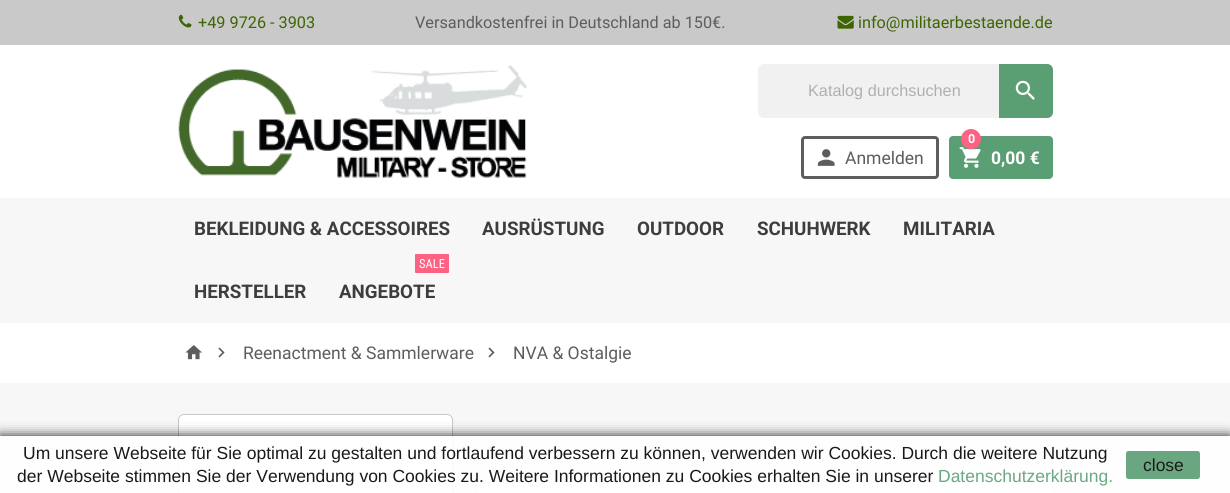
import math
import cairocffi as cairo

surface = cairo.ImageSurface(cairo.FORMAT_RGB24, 1230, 493)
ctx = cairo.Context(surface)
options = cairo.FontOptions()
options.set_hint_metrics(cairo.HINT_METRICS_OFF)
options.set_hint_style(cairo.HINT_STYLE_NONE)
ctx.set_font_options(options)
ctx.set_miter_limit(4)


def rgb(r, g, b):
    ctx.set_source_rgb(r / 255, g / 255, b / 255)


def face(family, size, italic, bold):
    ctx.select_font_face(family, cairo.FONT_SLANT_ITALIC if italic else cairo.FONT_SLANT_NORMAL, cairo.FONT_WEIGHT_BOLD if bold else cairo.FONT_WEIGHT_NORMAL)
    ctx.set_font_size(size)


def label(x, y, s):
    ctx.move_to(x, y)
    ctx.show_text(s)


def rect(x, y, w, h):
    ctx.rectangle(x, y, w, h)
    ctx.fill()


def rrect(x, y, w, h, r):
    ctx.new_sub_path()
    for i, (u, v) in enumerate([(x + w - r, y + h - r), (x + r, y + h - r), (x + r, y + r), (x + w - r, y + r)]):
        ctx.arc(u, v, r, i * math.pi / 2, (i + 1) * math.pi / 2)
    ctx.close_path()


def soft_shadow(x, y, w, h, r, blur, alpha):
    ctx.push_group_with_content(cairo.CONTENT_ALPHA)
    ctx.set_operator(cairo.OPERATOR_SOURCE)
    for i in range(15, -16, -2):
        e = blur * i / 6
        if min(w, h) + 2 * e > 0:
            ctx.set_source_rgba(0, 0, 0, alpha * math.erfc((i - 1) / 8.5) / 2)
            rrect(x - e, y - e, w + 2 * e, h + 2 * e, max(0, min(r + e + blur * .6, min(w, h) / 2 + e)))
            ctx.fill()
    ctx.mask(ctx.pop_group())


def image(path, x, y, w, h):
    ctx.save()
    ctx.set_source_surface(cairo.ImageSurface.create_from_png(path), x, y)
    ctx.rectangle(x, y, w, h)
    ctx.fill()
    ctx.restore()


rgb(255, 255, 255)
ctx.paint()
rgb(201, 201, 201)
rect(0, 0, 1230, 45)
image('image0.png', 178, 14, 14, 14)
face('Roboto', 16.25, 0, 0)
rgb(61, 101, 2)
label(198, 28, '+49 9726 - 3903')
rgb(93, 93, 93)
label(415, 28, 'Versandkostenfrei in Deutschland ab 150€.')
image('image1.png', 837, 15, 17, 14)
rgb(61, 101, 2)
label(858, 28, 'info@militaerbestaende.de')
image('image2.png', 178, 65, 350, 113)
rgb(241, 241, 241)
rrect(758, 64, 295, 54, 6)
ctx.fill()
face('Liberation Sans', 16.25, 0, 0)
rgb(176, 176, 176)
label(808, 96, 'Katalog durchsuchen')
rgb(90, 158, 116)
ctx.new_path()
ctx.move_to(999, 64)
ctx.line_to(1047, 64)
ctx.curve_to(1050.5, 64, 1053, 66.5, 1053, 70)
ctx.line_to(1053, 112)
ctx.curve_to(1053, 115.5, 1050.5, 118, 1047, 118)
ctx.line_to(999, 118)
ctx.close_path()
ctx.fill()
image('image3.png', 1015, 80, 20, 20)
rrect(802.5, 137.5, 135, 40, 2.5)
rgb(93, 93, 93)
ctx.set_line_width(3)
ctx.stroke()
image('image4.png', 817, 149, 18, 17)
face('Roboto', 17.5, 0, 0)
label(845, 164, 'Anmelden')
rgb(90, 158, 116)
rrect(949, 136, 104, 43, 4)
ctx.fill()
image('image5.png', 959, 147, 22, 21)
rgb(253, 98, 130)
ctx.arc(971, 139, 10, 0, 2 * math.pi)
ctx.fill()
face('Roboto', 12.5, 0, 1)
rgb(255, 255, 255)
label(968, 143, '0')
face('Roboto', 17.5, 0, 1)
label(991, 164, '0,00 €')
rgb(247, 247, 247)
rect(0, 198, 1230, 125)
face('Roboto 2', 18.75, 0, 1)
rgb(61, 61, 61)
label(194, 235, 'BEKLEIDUNG & ACCESSOIRES')
label(482, 235, 'AUSRÜSTUNG')
label(637, 235, 'OUTDOOR')
label(757, 235, 'SCHUHWERK')
label(903, 235, 'MILITARIA')
label(194, 298, 'HERSTELLER')
rgb(253, 98, 130)
rrect(415, 254, 34, 19, 1)
ctx.fill()
face('Roboto Condensed', 12.5, 0, 0)
rgb(255, 255, 255)
label(419, 268, 'SALE')
face('Roboto 2', 18.75, 0, 1)
rgb(61, 61, 61)
label(339, 298, 'ANGEBOTE')
image('image6.png', 185, 345, 17, 15)
image('image7.png', 218, 347, 7, 11)
face('Roboto', 17.5, 0, 0)
rgb(93, 93, 93)
label(243, 359, 'Reenactment & Sammlerware')
image('image7.png', 488, 347, 7, 11)
label(513, 359, 'NVA & Ostalgie')
rgb(247, 247, 247)
rect(0, 383, 1230, 110)
rgb(255, 255, 255)
rrect(178.5, 414.5, 274, 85, 5.5)
ctx.fill_preserve()
rgb(199, 199, 199)
ctx.set_line_width(1)
ctx.stroke()
rect(179, 473, 272, 1)
rgb(0, 0, 0)
soft_shadow(478, 484, 575, 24, 6, 3, 0.2)
rgb(255, 255, 255)
rrect(478, 483, 575, 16, 6)
ctx.fill()
ctx.save()
ctx.set_fill_rule(cairo.FILL_RULE_EVEN_ODD)
ctx.new_path()
ctx.move_to(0, 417)
ctx.line_to(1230, 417)
ctx.line_to(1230, 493)
ctx.line_to(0, 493)
ctx.close_path()
ctx.move_to(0, 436)
ctx.line_to(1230, 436)
ctx.line_to(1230, 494)
ctx.line_to(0, 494)
ctx.close_path()
ctx.clip()
rgb(0, 0, 0)
soft_shadow(0, 436, 1230, 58, 0, 6, 0.9)
ctx.restore()
ctx.set_source_rgba(1, 1, 1, 0.9)
rect(0, 436, 1230, 57)
face('Liberation Sans', 17.5, 0, 0)
rgb(25, 25, 25)
label(23, 459, 'Um unsere Webseite für Sie optimal zu gestalten und fortlaufend verbessern zu können, verwenden wir Cookies. Durch die weitere Nutzung')
label(17, 482, 'der Webseite stimmen Sie der Verwendung von Cookies zu. Weitere Informationen zu Cookies erhalten Sie in unserer')
rgb(106, 168, 130)
label(938, 482, 'Datenschutzerklärung.')
rgb(106, 167, 129)
rrect(1126, 451, 74, 28, 2.5)
ctx.fill()
rgb(25, 25, 25)
label(1143, 471, 'close')
surface.write_to_png('render.png')
